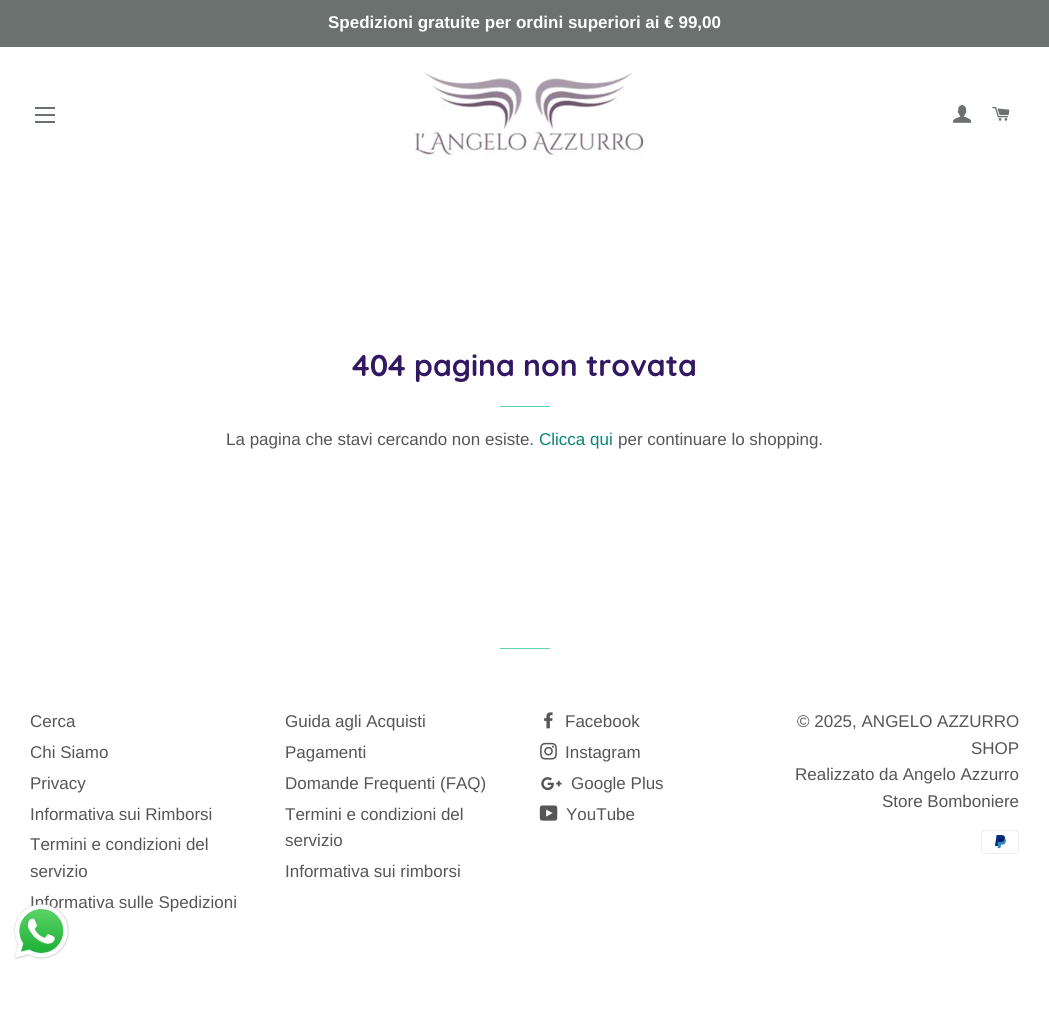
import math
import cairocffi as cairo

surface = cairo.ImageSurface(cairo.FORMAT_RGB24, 1049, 1010)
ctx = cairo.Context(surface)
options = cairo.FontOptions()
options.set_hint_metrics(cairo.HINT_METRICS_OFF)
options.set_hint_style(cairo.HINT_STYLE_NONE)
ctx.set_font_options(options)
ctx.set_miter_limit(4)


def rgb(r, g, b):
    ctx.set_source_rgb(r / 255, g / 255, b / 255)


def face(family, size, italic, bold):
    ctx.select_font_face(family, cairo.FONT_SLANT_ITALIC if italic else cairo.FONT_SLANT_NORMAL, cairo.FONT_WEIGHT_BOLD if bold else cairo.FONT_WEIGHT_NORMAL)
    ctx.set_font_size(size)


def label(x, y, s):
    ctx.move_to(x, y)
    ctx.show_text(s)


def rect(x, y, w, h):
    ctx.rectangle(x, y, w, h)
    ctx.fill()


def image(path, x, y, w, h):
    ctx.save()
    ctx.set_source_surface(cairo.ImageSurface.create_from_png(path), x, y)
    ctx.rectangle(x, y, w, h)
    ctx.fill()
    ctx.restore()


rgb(255, 255, 255)
ctx.paint()
rgb(107, 113, 111)
rect(0, 0, 1049, 47)
face('Liberation Sans', 17, 0, 1)
rgb(255, 255, 255)
label(328, 28, 'Spedizioni gratuite per ordini superiori ai € 99,00')
rgb(107, 113, 111)
rect(35, 107, 20, 2)
rect(35, 114, 20, 2)
rect(35, 121, 20, 2)
image('image0.png', 414, 72, 232, 86)
image('image1.png', 953, 104, 19, 19)
image('image2.png', 992, 106, 18, 15)
face('Quicksand', 30, 0, 1)
rgb(50, 24, 99)
label(352, 376, '404 pagina non trovata')
rgb(93, 210, 180)
rect(500, 406, 50, 1)
face('Liberation Sans', 17, 0, 0)
rgb(86, 86, 86)
label(226, 445, 'La pagina che stavi cercando non esiste.')
rgb(5, 134, 119)
label(539, 445, 'Clicca qui')
rgb(86, 86, 86)
label(618, 445, 'per continuare lo shopping.')
rgb(93, 210, 180)
rect(500, 648, 50, 1)
rgb(86, 86, 86)
label(30, 727, 'Cerca')
label(30, 758, 'Chi Siamo')
label(30, 789, 'Privacy')
label(30, 820, 'Informativa sui Rimborsi')
label(30, 850, 'Termini e condizioni del')
label(30, 877, 'servizio')
label(30, 908, 'Informativa sulle Spedizioni')
label(285, 727, 'Guida agli Acquisti')
label(285, 758, 'Pagamenti')
label(285, 789, 'Domande Frequenti (FAQ)')
label(285, 820, 'Termini e condizioni del')
label(285, 846, 'servizio')
label(285, 877, 'Informativa sui rimborsi')
image('image3.png', 544, 712, 9, 17)
label(565, 727, 'Facebook')
image('image4.png', 540, 742, 17, 18)
label(565, 758, 'Instagram')
image('image5.png', 541, 777, 21, 14)
label(571, 789, 'Google Plus')
image('image6.png', 539, 805, 19, 16)
label(566, 820, 'YouTube')
label(797, 727, '© 2025, ANGELO AZZURRO')
label(971, 754, 'SHOP')
label(795, 780, 'Realizzato da Angelo Azzurro')
label(882, 807, 'Store Bomboniere')
image('image7.png', 981, 830, 38, 24)
image('image8.png', 13, 903, 57, 57)
surface.write_to_png('render.png')
